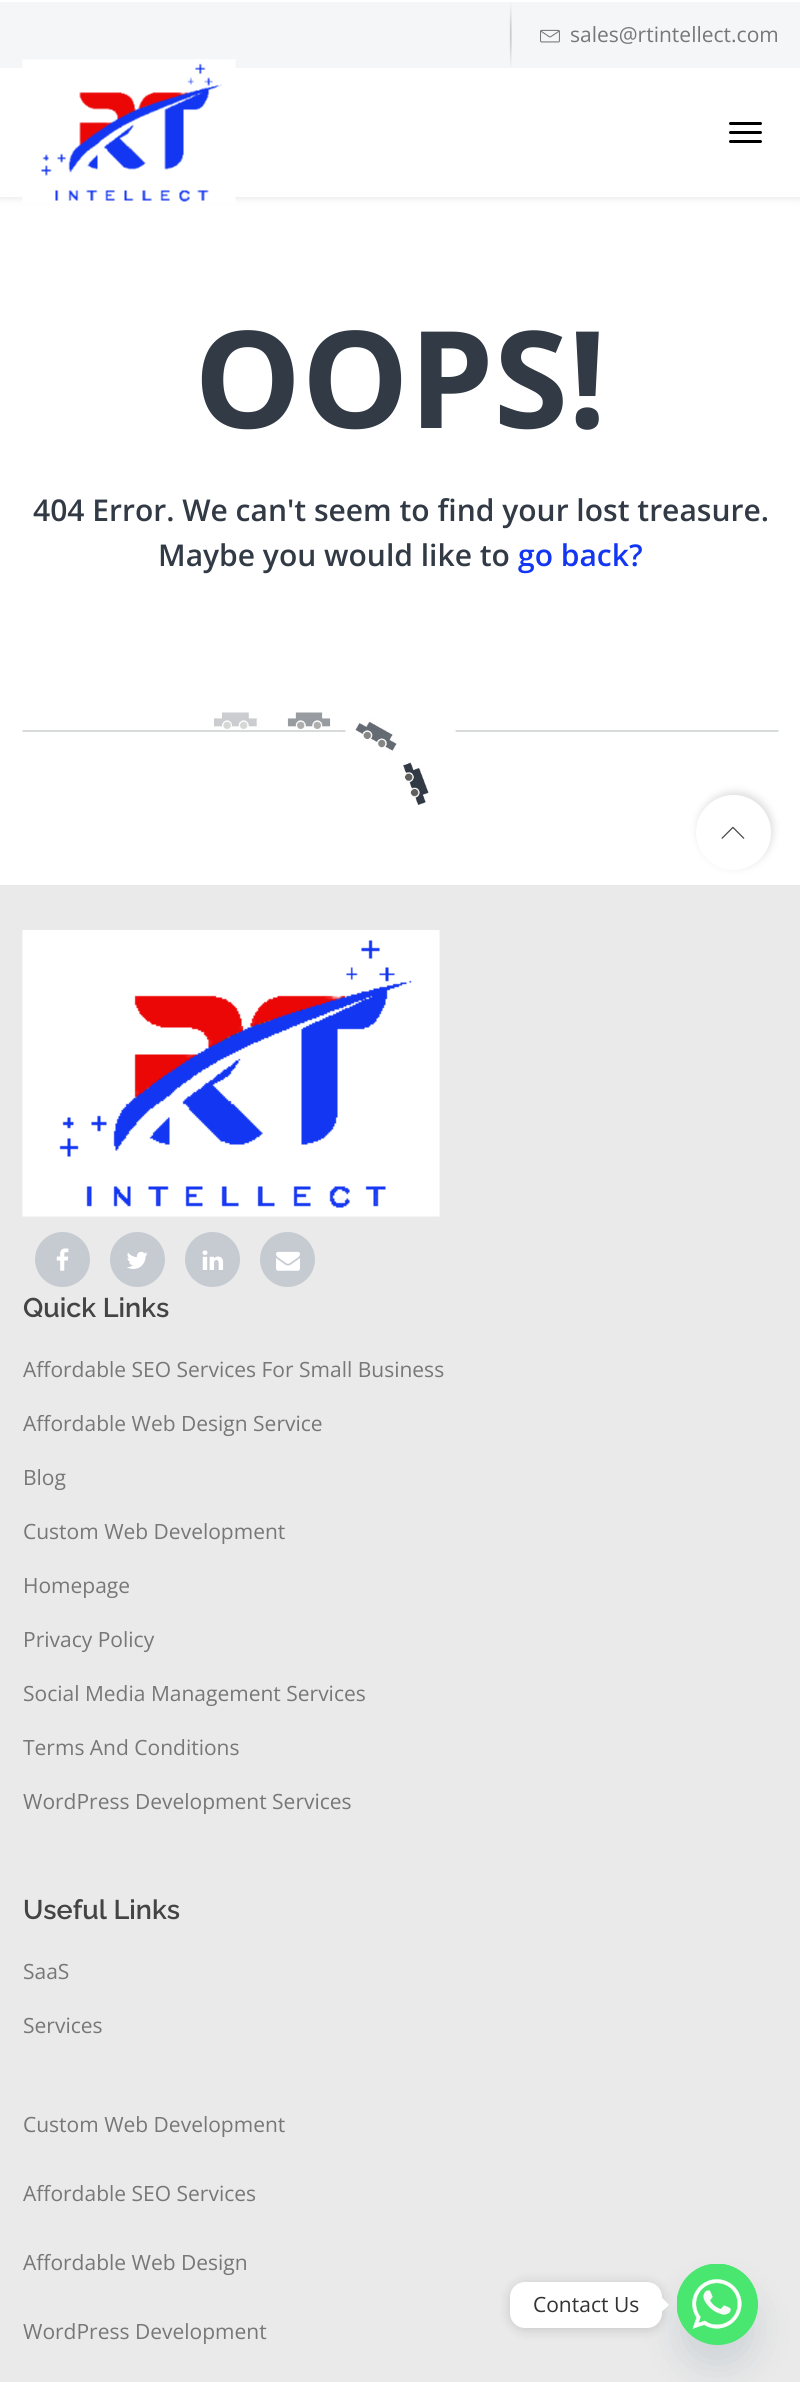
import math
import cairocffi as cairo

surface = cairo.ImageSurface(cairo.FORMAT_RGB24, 800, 2382)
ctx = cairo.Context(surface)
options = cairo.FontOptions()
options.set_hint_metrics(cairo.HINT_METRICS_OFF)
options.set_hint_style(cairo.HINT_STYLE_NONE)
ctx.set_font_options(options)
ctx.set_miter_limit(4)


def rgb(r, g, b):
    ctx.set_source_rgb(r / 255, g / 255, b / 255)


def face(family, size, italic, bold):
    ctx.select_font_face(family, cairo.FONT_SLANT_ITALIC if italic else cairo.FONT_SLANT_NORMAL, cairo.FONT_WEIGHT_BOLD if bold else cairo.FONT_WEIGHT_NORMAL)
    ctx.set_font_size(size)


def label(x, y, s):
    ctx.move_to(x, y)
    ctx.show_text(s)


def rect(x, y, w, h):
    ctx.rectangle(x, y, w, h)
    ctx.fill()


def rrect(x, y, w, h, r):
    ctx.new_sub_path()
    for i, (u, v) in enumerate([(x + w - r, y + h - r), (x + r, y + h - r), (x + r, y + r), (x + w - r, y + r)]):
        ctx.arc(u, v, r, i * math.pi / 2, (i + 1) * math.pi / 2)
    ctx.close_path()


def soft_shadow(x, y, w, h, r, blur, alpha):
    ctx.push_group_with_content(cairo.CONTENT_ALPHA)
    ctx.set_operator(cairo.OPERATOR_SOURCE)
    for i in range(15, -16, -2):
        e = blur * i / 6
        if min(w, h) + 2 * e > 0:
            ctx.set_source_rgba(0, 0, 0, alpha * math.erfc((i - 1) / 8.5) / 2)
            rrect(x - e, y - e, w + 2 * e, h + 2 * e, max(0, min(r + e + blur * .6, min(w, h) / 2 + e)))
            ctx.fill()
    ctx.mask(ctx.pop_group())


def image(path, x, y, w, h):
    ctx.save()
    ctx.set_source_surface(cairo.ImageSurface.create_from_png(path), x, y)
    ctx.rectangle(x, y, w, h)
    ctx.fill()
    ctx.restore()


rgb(255, 255, 255)
ctx.paint()
rgb(0, 0, 0)
soft_shadow(0, 0, 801, 197, 0, 5, 0.12)
rgb(255, 255, 255)
rect(0, 0, 800, 197)
rgb(245, 246, 247)
rect(0, 2, 800, 66)
image('image0.png', 509, 1, 3, 66)
image('image1.png', 540, 29, 20, 14)
face('Open Sans', 21, 0, 0)
rgb(119, 119, 119)
label(570, 42, 'sales@rtintellect.com')
image('image2.png', 22, 59, 214, 144)
rgb(0, 0, 0)
rrect(729, 122, 33, 3, 1.5)
ctx.fill()
rrect(729, 131, 33, 3, 1.5)
ctx.fill()
rrect(729, 140, 33, 3, 1.5)
ctx.fill()
face('Open Sans', 135, 0, 1)
rgb(50, 58, 69)
label(194, 428, 'OOPS!')
face('Open Sans SemiBold', 30, 0, 0)
label(33, 521, '404 Error. We can\'t seem to find your lost treasure.')
label(158, 566, 'Maybe you would like to')
rgb(19, 54, 242)
label(518, 566, 'go back?')
image('image3.png', 22, 712, 757, 93)
rgb(198, 198, 198)
soft_shadow(698, 792, 75, 75, 37.5, 4, 0.59)
rgb(255, 255, 255)
ctx.arc(733.5, 832.5, 37.5, 0, 2 * math.pi)
ctx.fill()
image('image4.png', 721, 826, 24, 13)
rgb(234, 234, 234)
rect(0, 885, 800, 1497)
image('image5.png', 22, 930, 418, 287)
rgb(198, 203, 210)
ctx.arc(62.5, 1259.5, 27.5, 0, 2 * math.pi)
ctx.fill()
image('image6.png', 56, 1248, 13, 23)
ctx.arc(137.5, 1259.5, 27.5, 0, 2 * math.pi)
ctx.fill()
image('image7.png', 127, 1251, 21, 18)
ctx.arc(212.5, 1259.5, 27.5, 0, 2 * math.pi)
ctx.fill()
image('image8.png', 202, 1250, 22, 20)
ctx.arc(287.5, 1259.5, 27.5, 0, 2 * math.pi)
ctx.fill()
image('image9.png', 276, 1251, 24, 20)
face('Raleway SemiBold', 27, 0, 0)
rgb(68, 68, 68)
label(23, 1317, 'Quick Links')
face('Open Sans', 21, 0, 0)
rgb(119, 119, 119)
label(23, 1377, 'Affordable SEO Services For Small Business')
label(23, 1431, 'Affordable Web Design Service')
label(23, 1485, 'Blog')
label(23, 1539, 'Custom Web Development')
label(23, 1593, 'Homepage')
label(23, 1647, 'Privacy Policy')
label(23, 1701, 'Social Media Management Services')
label(23, 1755, 'Terms And Conditions')
label(23, 1809, 'WordPress Development Services')
face('Raleway SemiBold', 27, 0, 0)
rgb(68, 68, 68)
label(23, 1919, 'Useful Links')
face('Open Sans', 21, 0, 0)
rgb(119, 119, 119)
label(23, 1979, 'SaaS')
label(23, 2033, 'Services')
label(23, 2132, 'Custom Web Development')
label(23, 2201, 'Affordable SEO Services')
label(23, 2270, 'Affordable Web Design')
label(23, 2339, 'WordPress Development')
rgb(73, 104, 126)
soft_shadow(677, 2288, 81, 81, 40.5, 18, 0.16)
rgb(73, 230, 112)
ctx.arc(717.5, 2304.5, 40.5, 0, 2 * math.pi)
ctx.fill()
image('image10.png', 677, 2264, 81, 81)
rgb(0, 0, 0)
soft_shadow(510, 2283, 152, 47, 15, 6, 0.15)
rgb(255, 255, 255)
rrect(510, 2282, 152, 46, 15)
ctx.fill()
rgb(51, 51, 51)
label(533, 2312, 'Contact Us')
rgb(255, 255, 255)
ctx.new_path()
ctx.move_to(661.5, 2312)
ctx.line_to(661.5, 2297)
ctx.line_to(669, 2305)
ctx.close_path()
ctx.fill()
surface.write_to_png('render.png')
